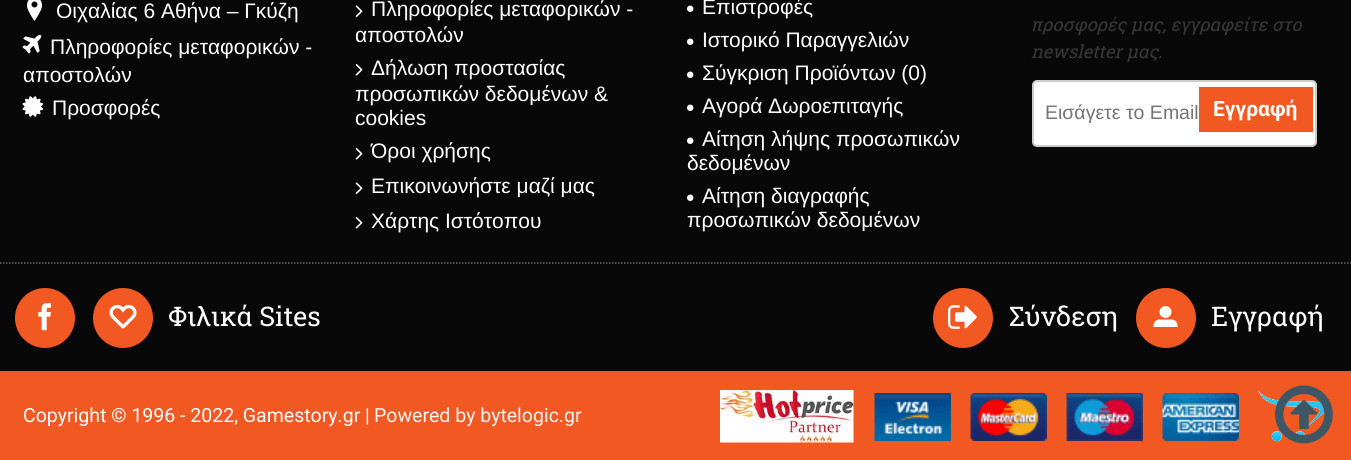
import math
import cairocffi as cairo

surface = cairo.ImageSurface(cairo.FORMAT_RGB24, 1351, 460)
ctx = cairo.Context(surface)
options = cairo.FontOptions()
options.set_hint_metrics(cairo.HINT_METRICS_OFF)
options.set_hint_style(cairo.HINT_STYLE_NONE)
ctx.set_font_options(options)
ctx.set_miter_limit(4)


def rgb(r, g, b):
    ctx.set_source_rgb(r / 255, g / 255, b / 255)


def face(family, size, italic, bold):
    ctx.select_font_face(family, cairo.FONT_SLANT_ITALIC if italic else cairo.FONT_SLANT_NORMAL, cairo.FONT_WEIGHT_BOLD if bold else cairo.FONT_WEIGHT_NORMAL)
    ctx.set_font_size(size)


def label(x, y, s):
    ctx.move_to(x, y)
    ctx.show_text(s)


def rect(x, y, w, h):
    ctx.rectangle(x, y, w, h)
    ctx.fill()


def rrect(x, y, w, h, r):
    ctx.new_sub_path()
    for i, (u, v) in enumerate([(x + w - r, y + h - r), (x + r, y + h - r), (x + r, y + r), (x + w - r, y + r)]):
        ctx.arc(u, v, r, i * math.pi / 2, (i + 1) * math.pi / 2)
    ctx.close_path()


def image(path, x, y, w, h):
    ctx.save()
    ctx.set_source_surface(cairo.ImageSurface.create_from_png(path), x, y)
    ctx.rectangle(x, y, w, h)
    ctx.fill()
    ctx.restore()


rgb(9, 8, 8)
ctx.paint()
image('image0.png', 27, 0, 15, 21)
face('Liberation Sans', 21, 0, 0)
rgb(255, 255, 255)
label(56, 18, 'Οιχαλίας 6 Αθήνα – Γκύζη')
image('image1.png', 22, 34, 20, 20)
label(50, 54, 'Πληροφορίες μεταφορικών -')
label(23, 82, 'αποστολών')
image('image2.png', 22, 96, 21, 21)
label(52, 115, 'Προσφορές')
image('image3.png', 355, 5, 8, 12)
label(371, 16, 'Πληροφορίες μεταφορικών -')
label(355, 42, 'αποστολών')
image('image4.png', 355, 64, 8, 12)
label(371, 75, 'Δήλωση προστασίας')
label(355, 101, 'προσωπικών δεδομένων &')
label(355, 125, 'cookies')
image('image4.png', 355, 148, 8, 12)
label(371, 158, 'Όροι χρήσης')
image('image3.png', 355, 182, 8, 12)
label(371, 193, 'Επικοινωνήστε μαζί μας')
image('image4.png', 355, 217, 8, 12)
label(371, 228, 'Χάρτης Ιστότοπου')
image('image5.png', 687, 5, 7, 7)
label(702, 14, 'Επιστροφές')
image('image5.png', 687, 38, 7, 7)
label(702, 47, 'Ιστορικό Παραγγελιών')
image('image5.png', 687, 71, 7, 7)
label(702, 80, 'Σύγκριση Προϊόντων (0)')
image('image5.png', 687, 104, 7, 7)
label(702, 113, 'Αγορά Δωροεπιταγής')
image('image5.png', 687, 137, 7, 7)
label(702, 146, 'Αίτηση λήψης προσωπικών')
label(687, 170, 'δεδομένων')
image('image5.png', 687, 194, 7, 7)
label(702, 203, 'Αίτηση διαγραφής')
label(687, 227, 'προσωπικών δεδομένων')
face('Roboto Slab', 18, 1, 0)
rgb(56, 56, 56)
label(1031, 31, 'προσφορές μας, εγγραφείτε στο')
label(1031, 58, 'newsletter μας.')
rgb(255, 255, 255)
rrect(1033, 81, 283, 65, 4)
ctx.fill_preserve()
rgb(204, 204, 204)
ctx.stroke()
face('Liberation Sans', 19.5, 0, 0)
rgb(117, 117, 117)
label(1045, 119, 'Εισάγετε το Email')
rgb(242, 88, 34)
rect(1199, 87, 114, 45)
face('Roboto', 21, 0, 1)
rgb(255, 255, 255)
label(1213, 116, 'Εγγραφή')
ctx.new_path()
ctx.move_to(0, 263)
ctx.line_to(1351.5, 263)
rgb(95, 104, 116)
ctx.set_line_width(1.5)
ctx.set_dash([1.5, 1.5])
ctx.stroke()
rgb(242, 88, 34)
ctx.arc(45, 318, 30, 0, 2 * math.pi)
ctx.fill()
image('image6.png', 38, 303, 13, 28)
ctx.arc(123, 318, 30, 0, 2 * math.pi)
ctx.fill()
image('image7.png', 109, 304, 28, 25)
face('Roboto Slab', 27, 0, 0)
rgb(255, 255, 255)
label(168, 326, 'Φιλικά Sites')
rgb(242, 88, 34)
ctx.new_path()
ctx.arc(963, 318, 30, 0, 2 * math.pi)
ctx.fill()
image('image8.png', 948, 305, 29, 24)
rgb(255, 255, 255)
label(1009, 326, 'Σύνδεση')
rgb(242, 88, 34)
ctx.new_path()
ctx.arc(1166, 318, 30, 0, 2 * math.pi)
ctx.fill()
image('image9.png', 1153, 306, 25, 21)
rgb(255, 255, 255)
label(1211, 326, 'Εγγραφή')
rgb(242, 88, 34)
rect(0, 371, 1351, 89)
face('Roboto', 19.5, 0, 0)
rgb(255, 255, 255)
label(23, 422, 'Copyright © 1996 - 2022, Gamestory.gr |')
rgb(244, 244, 244)
label(374, 422, 'Powered by bytelogic.gr')
image('image10.png', 720, 390, 134, 53)
image('image11.png', 874, 393, 77, 48)
image('image12.png', 970, 393, 77, 48)
image('image13.png', 1066, 393, 77, 48)
image('image14.png', 1162, 393, 77, 48)
image('image15.png', 1258, 391, 67, 51)
image('image16.png', 1275, 385, 58, 59)
surface.write_to_png('render.png')
